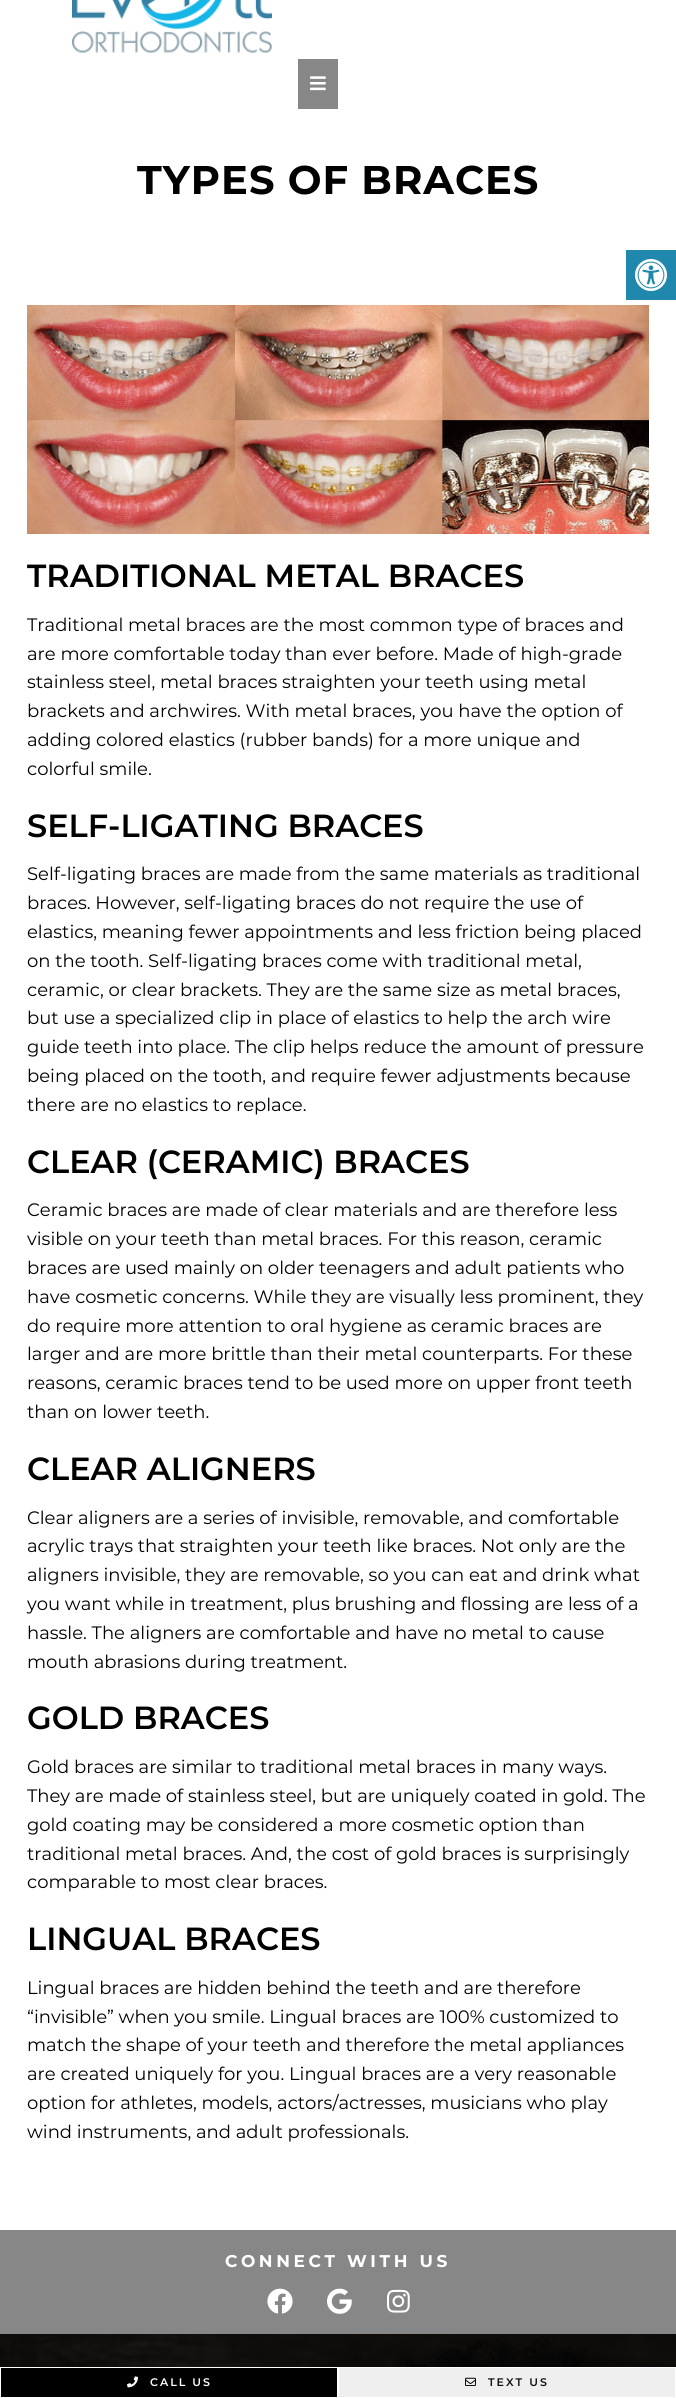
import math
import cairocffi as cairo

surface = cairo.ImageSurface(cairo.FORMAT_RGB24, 676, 2398)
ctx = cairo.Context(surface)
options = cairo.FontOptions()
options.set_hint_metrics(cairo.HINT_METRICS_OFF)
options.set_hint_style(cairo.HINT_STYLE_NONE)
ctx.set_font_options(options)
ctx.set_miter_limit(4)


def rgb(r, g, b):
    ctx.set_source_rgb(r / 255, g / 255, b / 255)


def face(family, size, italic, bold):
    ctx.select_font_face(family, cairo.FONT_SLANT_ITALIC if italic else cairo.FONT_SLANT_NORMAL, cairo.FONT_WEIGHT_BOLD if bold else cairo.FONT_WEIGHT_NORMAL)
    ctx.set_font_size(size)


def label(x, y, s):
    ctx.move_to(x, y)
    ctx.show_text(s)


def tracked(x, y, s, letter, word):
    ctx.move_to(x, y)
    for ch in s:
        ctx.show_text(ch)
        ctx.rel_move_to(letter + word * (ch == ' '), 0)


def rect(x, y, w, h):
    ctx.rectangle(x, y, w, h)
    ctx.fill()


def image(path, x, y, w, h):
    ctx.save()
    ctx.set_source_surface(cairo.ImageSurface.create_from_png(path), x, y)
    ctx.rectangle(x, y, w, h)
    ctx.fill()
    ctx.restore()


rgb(255, 255, 255)
ctx.paint()
image('image0.png', 72, 0, 200, 53)
rgb(135, 135, 135)
rect(298, 59, 40, 50)
image('image1.png', 310, 76, 16, 15)
face('Montserrat', 40, 0, 1)
rgb(0, 0, 0)
tracked(137, 194, 'TYPES OF BRACES', 1, 0)
image('image2.png', 27, 305, 622, 229)
face('Montserrat SemiBold', 32, 0, 0)
label(27, 587, 'TRADITIONAL METAL BRACES')
face('Montserrat', 18, 0, 0)
label(27, 631, 'Traditional metal braces are the most common type of braces and')
label(27, 660, 'are more comfortable today than ever before. Made of high-grade')
label(27, 688, 'stainless steel, metal braces straighten your teeth using metal')
label(27, 717, 'brackets and archwires. With metal braces, you have the option of')
label(27, 746, 'adding colored elastics (rubber bands) for a more unique and')
label(27, 775, 'colorful smile.')
face('Montserrat SemiBold', 32, 0, 0)
label(27, 837, 'SELF-LIGATING BRACES')
face('Montserrat', 18, 0, 0)
label(27, 880, 'Self-ligating braces are made from the same materials as traditional')
label(27, 909, 'braces. However, self-ligating braces do not require the use of')
label(27, 938, 'elastics, meaning fewer appointments and less friction being placed')
label(27, 967, 'on the tooth. Self-ligating braces come with traditional metal,')
label(27, 996, 'ceramic, or clear brackets. They are the same size as metal braces,')
label(27, 1024, 'but use a specialized clip in place of elastics to help the arch wire')
label(27, 1053, 'guide teeth into place. The clip helps reduce the amount of pressure')
label(27, 1082, 'being placed on the tooth, and require fewer adjustments because')
label(27, 1111, 'there are no elastics to replace.')
face('Montserrat SemiBold', 32, 0, 0)
label(27, 1173, 'CLEAR (CERAMIC) BRACES')
face('Montserrat', 18, 0, 0)
label(27, 1216, 'Ceramic braces are made of clear materials and are therefore less')
label(27, 1245, 'visible on your teeth than metal braces. For this reason, ceramic')
label(27, 1274, 'braces are used mainly on older teenagers and adult patients who')
label(27, 1303, 'have cosmetic concerns. While they are visually less prominent, they')
label(27, 1332, 'do require more attention to oral hygiene as ceramic braces are')
label(27, 1360, 'larger and are more brittle than their metal counterparts. For these')
label(27, 1389, 'reasons, ceramic braces tend to be used more on upper front teeth')
label(27, 1418, 'than on lower teeth.')
face('Montserrat SemiBold', 32, 0, 0)
label(27, 1480, 'CLEAR ALIGNERS')
face('Montserrat', 18, 0, 0)
label(27, 1524, 'Clear aligners are a series of invisible, removable, and comfortable')
label(27, 1552, 'acrylic trays that straighten your teeth like braces. Not only are the')
label(27, 1581, 'aligners invisible, they are removable, so you can eat and drink what')
label(27, 1610, 'you want while in treatment, plus brushing and flossing are less of a')
label(27, 1639, 'hassle. The aligners are comfortable and have no metal to cause')
label(27, 1668, 'mouth abrasions during treatment.')
face('Montserrat SemiBold', 32, 0, 0)
label(27, 1729, 'GOLD BRACES')
face('Montserrat', 18, 0, 0)
label(27, 1773, 'Gold braces are similar to traditional metal braces in many ways.')
label(27, 1802, 'They are made of stainless steel, but are uniquely coated in gold. The')
label(27, 1831, 'gold coating may be considered a more cosmetic option than')
label(27, 1860, 'traditional metal braces. And, the cost of gold braces is surprisingly')
label(27, 1888, 'comparable to most clear braces.')
face('Montserrat SemiBold', 32, 0, 0)
label(27, 1950, 'LINGUAL BRACES')
face('Montserrat', 18, 0, 0)
label(27, 1994, 'Lingual braces are hidden behind the teeth and are therefore')
label(27, 2023, '“invisible” when you smile. Lingual braces are 100% customized to')
label(27, 2051, 'match the shape of your teeth and therefore the metal appliances')
label(27, 2080, 'are created uniquely for you. Lingual braces are a very reasonable')
label(27, 2109, 'option for athletes, models, actors/actresses, musicians who play')
label(27, 2138, 'wind instruments, and adult professionals.')
rgb(135, 135, 135)
rect(0, 2230, 676, 104)
face('Montserrat', 17, 0, 1)
rgb(255, 255, 255)
tracked(225, 2267, 'CONNECT WITH US', 3.6, 0)
image('image3.png', 267, 2288, 26, 26)
image('image4.png', 327, 2288, 25, 26)
image('image5.png', 387, 2289, 23, 24)
image('image6.png', 0, 2334, 676, 33)
rgb(33, 136, 173)
rect(626, 250, 50, 50)
image('image7.png', 635, 259, 32, 32)
rgb(0, 0, 0)
rect(1, 2368, 336, 29)
image('image8.png', 127, 2376, 11, 12)
face('Montserrat SemiBold', 11, 0, 0)
rgb(255, 255, 255)
tracked(150, 2386, 'CALL US', 2, 0)
rgb(239, 239, 239)
rect(339, 2368, 336, 29)
image('image9.png', 465, 2377, 11, 9)
rgb(17, 17, 17)
tracked(488, 2386, 'TEXT US', 2, 0)
surface.write_to_png('render.png')
